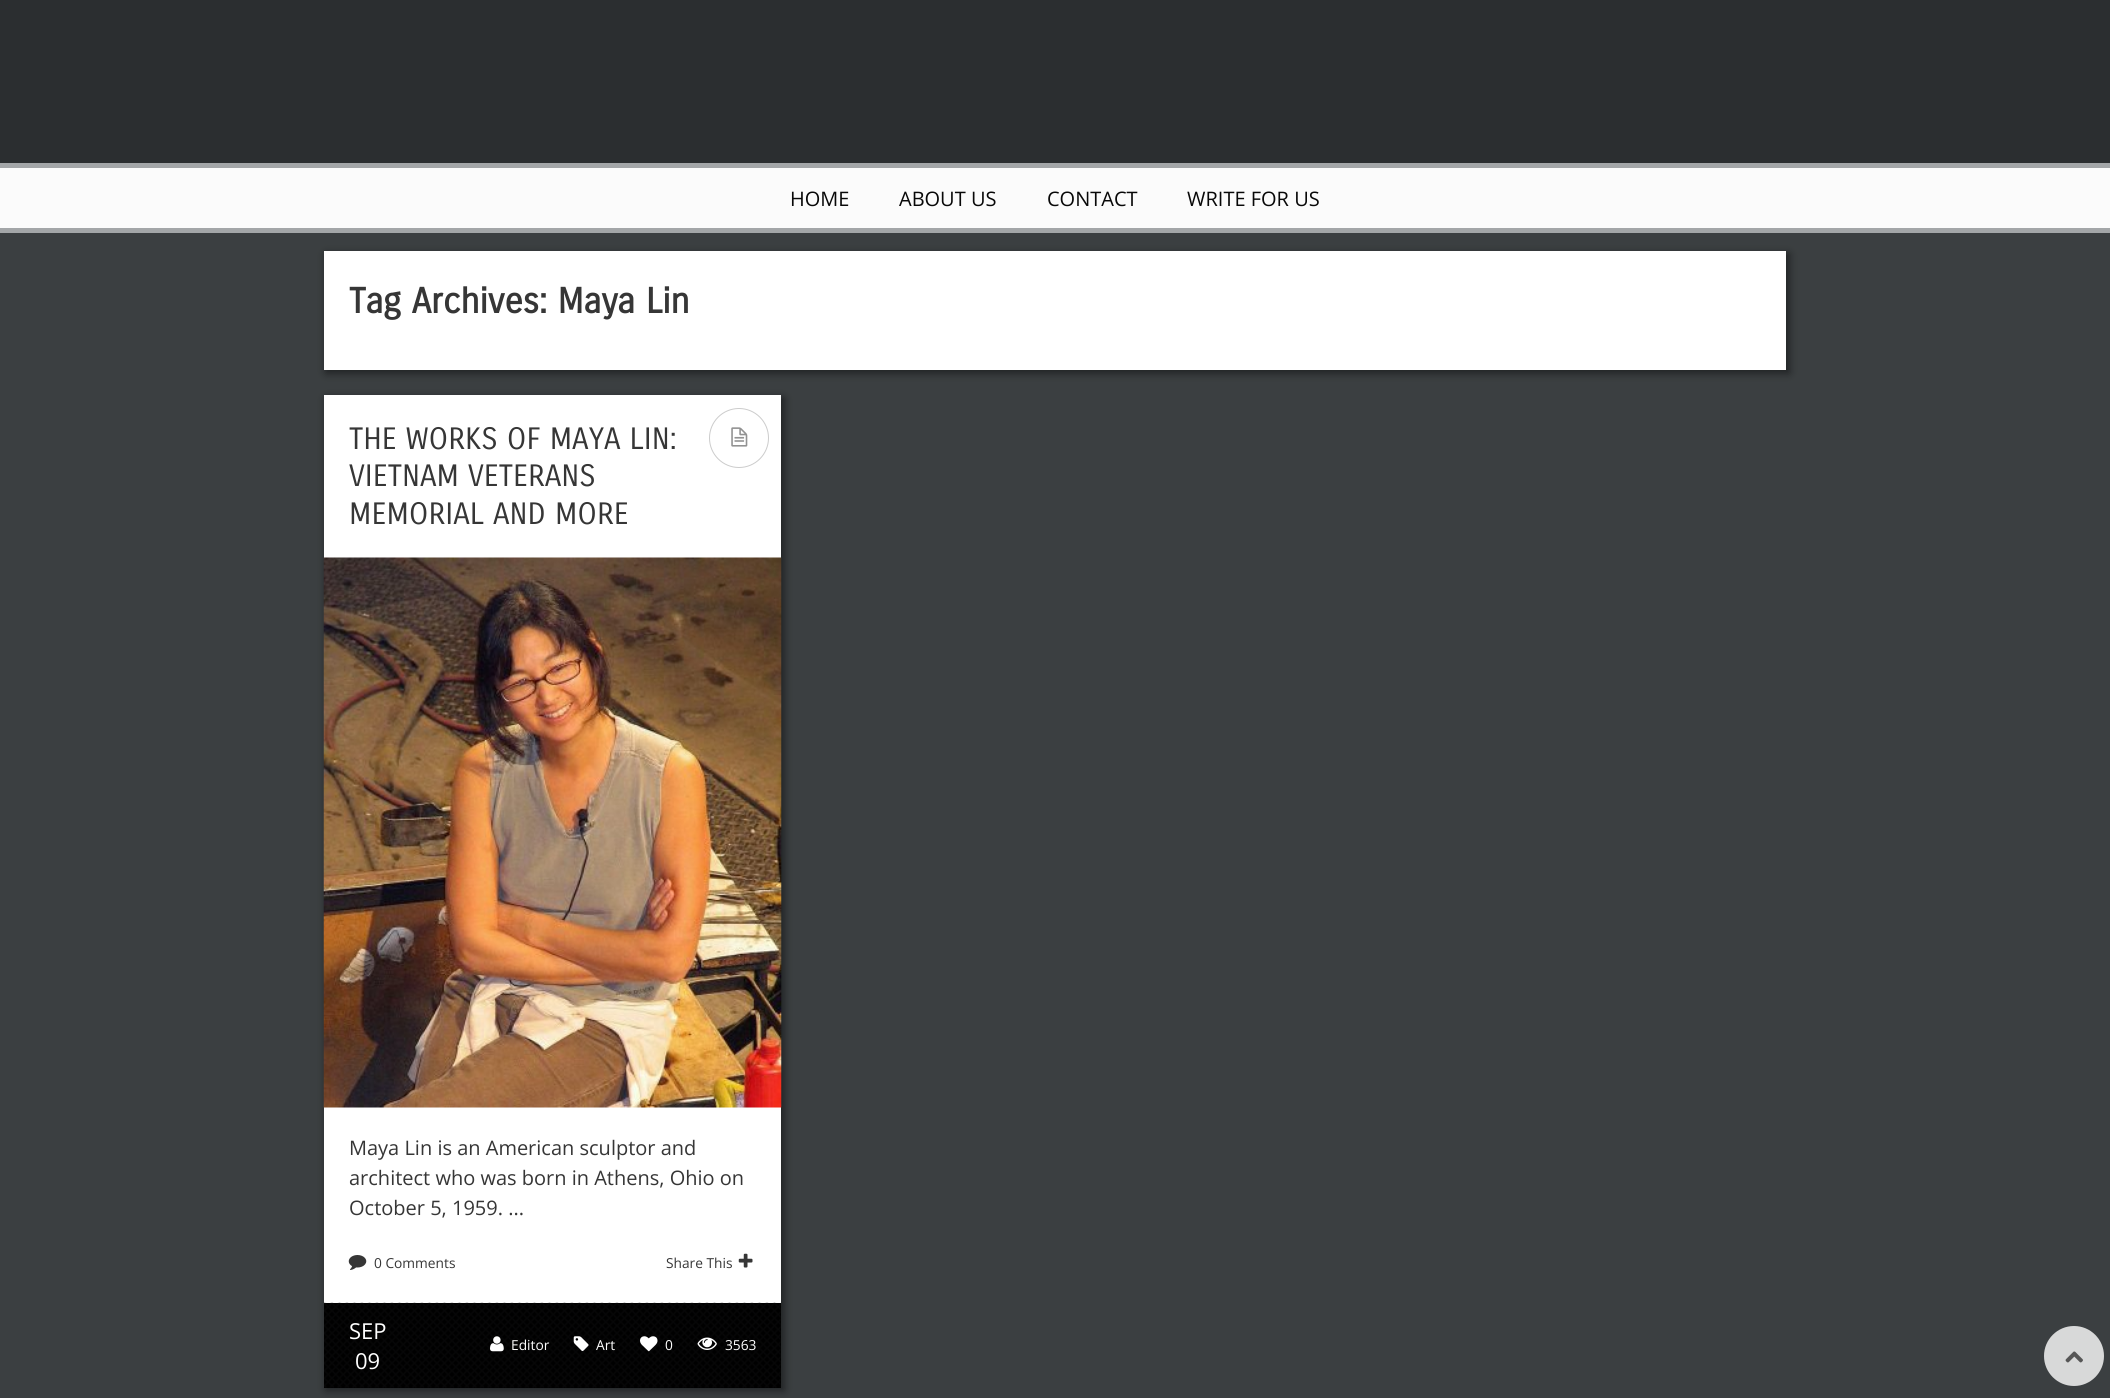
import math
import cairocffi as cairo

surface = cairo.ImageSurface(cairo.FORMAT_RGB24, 2110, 1398)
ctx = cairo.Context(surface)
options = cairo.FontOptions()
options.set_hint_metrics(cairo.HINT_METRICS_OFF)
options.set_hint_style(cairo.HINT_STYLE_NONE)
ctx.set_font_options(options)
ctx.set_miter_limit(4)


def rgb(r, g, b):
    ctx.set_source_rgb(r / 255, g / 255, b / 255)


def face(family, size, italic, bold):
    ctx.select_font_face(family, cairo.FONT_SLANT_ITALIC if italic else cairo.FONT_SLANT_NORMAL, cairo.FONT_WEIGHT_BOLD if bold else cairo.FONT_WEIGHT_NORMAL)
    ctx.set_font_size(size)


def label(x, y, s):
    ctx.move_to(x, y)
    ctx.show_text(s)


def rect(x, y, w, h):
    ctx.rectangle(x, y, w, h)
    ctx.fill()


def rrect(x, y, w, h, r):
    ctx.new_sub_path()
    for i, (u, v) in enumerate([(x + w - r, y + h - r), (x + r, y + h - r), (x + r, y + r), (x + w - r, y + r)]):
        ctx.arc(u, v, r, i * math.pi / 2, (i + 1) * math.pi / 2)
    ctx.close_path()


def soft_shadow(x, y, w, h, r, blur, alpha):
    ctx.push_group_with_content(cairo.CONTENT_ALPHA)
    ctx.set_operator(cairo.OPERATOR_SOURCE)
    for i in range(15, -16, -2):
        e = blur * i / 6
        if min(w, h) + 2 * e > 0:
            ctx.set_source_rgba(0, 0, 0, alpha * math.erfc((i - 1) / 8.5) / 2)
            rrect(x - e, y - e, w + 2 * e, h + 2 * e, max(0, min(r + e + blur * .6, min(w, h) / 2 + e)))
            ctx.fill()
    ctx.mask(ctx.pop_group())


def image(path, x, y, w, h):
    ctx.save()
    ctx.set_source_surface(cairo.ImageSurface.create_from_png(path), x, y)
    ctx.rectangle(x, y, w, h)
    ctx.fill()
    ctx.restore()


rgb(59, 63, 65)
ctx.paint()
rgb(43, 46, 48)
rect(0, 0, 2110, 163)
rgb(251, 251, 251)
rect(0, 168, 2110, 60)
rgb(163, 166, 168)
rect(0, 163, 2110, 5)
rect(0, 228, 2110, 5)
face('Open Sans', 20, 0, 0)
rgb(8, 8, 8)
label(790, 206, 'HOME')
label(899, 206, 'ABOUT US')
label(1047, 206, 'CONTACT')
label(1187, 206, 'WRITE FOR US')
rgb(0, 0, 0)
soft_shadow(326, 254, 1463, 119, 0, 4.5, 0.5)
rgb(255, 255, 255)
rect(324, 251, 1462, 119)
face('Carrois Gothic', 35, 0, 1)
rgb(54, 54, 54)
label(349, 313, 'Tag Archives: Maya Lin')
rgb(0, 0, 0)
soft_shadow(326, 398, 458, 992, 0, 4.5, 0.5)
rgb(255, 255, 255)
rect(324, 395, 457, 908)
face('Carrois Gothic', 30, 0, 0)
rgb(54, 54, 54)
label(349, 449, 'THE WORKS OF MAYA LIN:')
label(349, 486, 'VIETNAM VETERANS')
label(349, 524, 'MEMORIAL AND MORE')
ctx.new_path()
ctx.arc(739, 438, 29.5, 0, 2 * math.pi)
rgb(204, 204, 204)
ctx.set_line_width(1)
ctx.stroke()
image('image0.png', 731, 427, 17, 20)
image('image1.png', 323, 557, 459, 551)
face('Open Sans', 20, 0, 0)
rgb(54, 54, 54)
label(349, 1155, 'Maya Lin is an American sculptor and')
label(349, 1185, 'architect who was born in Athens, Ohio on')
label(349, 1215, 'October 5, 1959. ...')
image('image2.png', 348, 1255, 19, 15)
face('Open Sans', 13.75, 0, 0)
label(374, 1268, '0 Comments')
label(666, 1268, 'Share This')
image('image3.png', 738, 1253, 15, 15)
rgb(0, 0, 0)
rect(324, 1303, 457, 85)
image('image4.png', 324, 1302, 457, 86)
face('Open Sans', 22, 0, 0)
rgb(255, 255, 255)
label(349, 1339, 'SEP')
label(355, 1369, '09')
image('image5.png', 490, 1336, 14, 16)
face('Open Sans', 13.75, 0, 0)
label(511, 1350, 'Editor')
image('image6.png', 573, 1336, 16, 15)
label(596, 1350, 'Art')
image('image7.png', 640, 1336, 18, 16)
label(665, 1350, '0')
image('image8.png', 697, 1337, 20, 13)
label(725, 1350, '3563')
rgb(216, 217, 217)
ctx.new_path()
ctx.arc(2074, 1356, 30, 0, 2 * math.pi)
ctx.fill()
image('image9.png', 2065, 1351, 18, 12)
surface.write_to_png('render.png')
